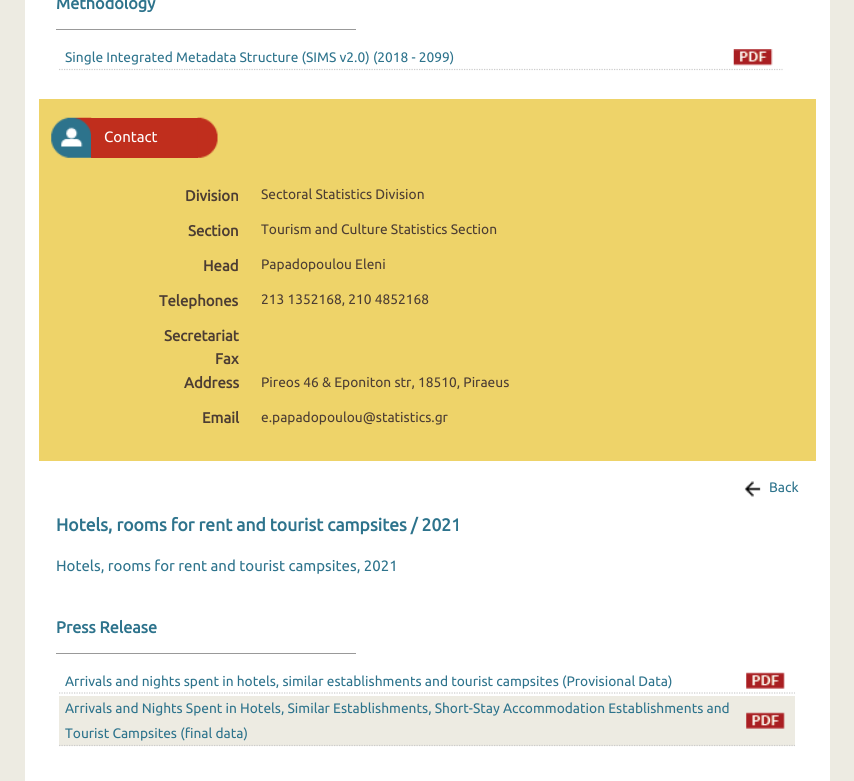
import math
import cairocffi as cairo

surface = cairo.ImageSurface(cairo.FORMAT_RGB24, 854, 781)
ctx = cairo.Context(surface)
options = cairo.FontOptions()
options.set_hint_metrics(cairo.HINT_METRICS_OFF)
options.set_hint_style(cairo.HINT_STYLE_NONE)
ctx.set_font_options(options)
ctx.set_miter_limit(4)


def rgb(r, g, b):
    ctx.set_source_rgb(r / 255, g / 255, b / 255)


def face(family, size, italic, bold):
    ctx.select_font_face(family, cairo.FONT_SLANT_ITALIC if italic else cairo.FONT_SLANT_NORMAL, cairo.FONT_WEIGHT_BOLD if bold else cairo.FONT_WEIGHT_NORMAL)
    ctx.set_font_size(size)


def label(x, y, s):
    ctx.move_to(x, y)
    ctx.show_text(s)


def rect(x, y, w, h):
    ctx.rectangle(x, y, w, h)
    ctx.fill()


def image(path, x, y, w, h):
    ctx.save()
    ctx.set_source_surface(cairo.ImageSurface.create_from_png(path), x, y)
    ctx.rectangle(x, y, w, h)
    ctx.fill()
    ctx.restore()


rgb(237, 235, 226)
ctx.paint()
rgb(255, 255, 255)
rect(25, 0, 805, 781)
rgb(153, 153, 153)
rect(56, 29, 300, 1)
face('Ubuntu', 16.25, 0, 1)
rgb(45, 115, 140)
label(56, 9, 'Methodology')
ctx.new_path()
ctx.move_to(59, 69.5)
ctx.line_to(782.5, 69.5)
rgb(204, 204, 204)
ctx.set_line_width(1.2)
ctx.set_dash([1.25, 1.25])
ctx.stroke()
face('Ubuntu', 13.75, 0, 0)
rgb(45, 115, 140)
label(65, 62, 'Single Integrated Metadata Structure (SIMS v2.0) (2018 - 2099)')
image('image0.png', 733, 49, 40, 17)
rgb(238, 211, 105)
rect(39, 99, 777, 362)
image('image1.png', 51, 117, 41, 41)
rgb(192, 46, 29)
rect(91, 118, 107, 40)
face('Ubuntu', 15, 0, 0)
rgb(255, 255, 255)
label(104, 142, 'Contact')
image('image2.png', 197, 117, 21, 41)
face('Ubuntu', 15, 0, 1)
rgb(76, 61, 51)
label(185, 201, 'Division')
face('Ubuntu', 13.75, 0, 0)
label(261, 199, 'Sectoral Statistics Division')
face('Ubuntu', 15, 0, 1)
label(188, 236, 'Section')
face('Ubuntu', 13.75, 0, 0)
label(261, 234, 'Tourism and Culture Statistics Section')
face('Ubuntu', 15, 0, 1)
label(203, 271, 'Head')
face('Ubuntu', 13.75, 0, 0)
label(261, 269, 'Papadopoulou Eleni')
face('Ubuntu', 15, 0, 1)
label(159, 306, 'Telephones')
face('Ubuntu', 13.75, 0, 0)
label(261, 304, '213 1352168, 210 4852168')
face('Ubuntu', 15, 0, 1)
label(164, 341, 'Secretariat')
label(215, 364, 'Fax')
label(184, 388, 'Address')
face('Ubuntu', 13.75, 0, 0)
label(261, 387, 'Pireos 46 & Eponiton str, 18510, Piraeus')
face('Ubuntu', 15, 0, 1)
label(202, 423, 'Email')
face('Ubuntu', 13.75, 0, 0)
label(261, 422, 'e.papadopoulou@statistics.gr')
image('image3.png', 744, 481, 17, 16)
rgb(45, 115, 140)
label(769, 492, 'Back')
face('Ubuntu', 17.5, 0, 1)
label(56, 531, 'Hotels, rooms for rent and tourist campsites / 2021')
face('Ubuntu', 15, 0, 0)
label(56, 571, 'Hotels, rooms for rent and tourist campsites, 2021')
rgb(153, 153, 153)
rect(56, 653, 300, 1)
face('Ubuntu', 16.25, 0, 1)
rgb(45, 115, 140)
label(56, 633, 'Press Release')
ctx.new_path()
ctx.move_to(59, 693)
ctx.line_to(795, 693)
rgb(204, 204, 204)
ctx.stroke()
face('Ubuntu', 13.75, 0, 0)
rgb(45, 115, 140)
label(65, 686, 'Arrivals and nights spent in hotels, similar establishments and tourist campsites (Provisional Data)')
image('image4.png', 746, 672, 39, 17)
rgb(237, 235, 226)
rect(59, 696, 736, 50)
ctx.new_path()
ctx.move_to(59, 745.5)
ctx.line_to(795, 745.5)
rgb(204, 204, 204)
ctx.stroke()
rgb(45, 115, 140)
label(65, 713, 'Arrivals and Nights Spent in Hotels, Similar Establishments, Short-Stay Accommodation Establishments and')
label(65, 738, 'Tourist Campsites (final data)')
image('image5.png', 746, 712, 39, 17)
surface.write_to_png('render.png')
